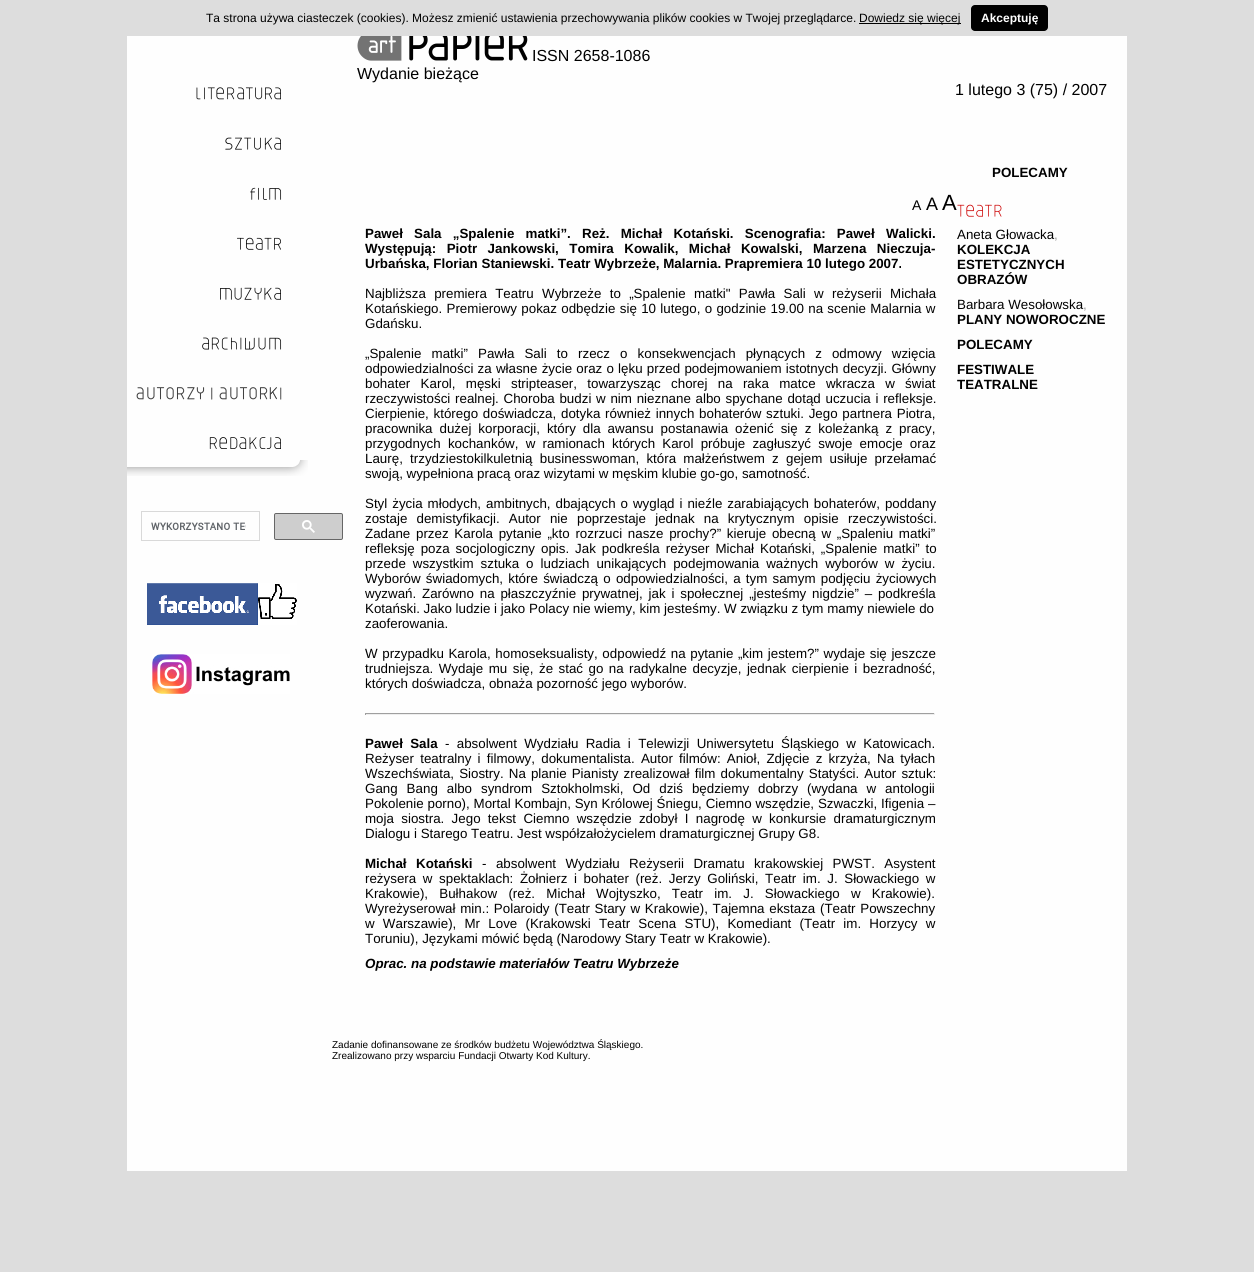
import math
import cairocffi as cairo

surface = cairo.ImageSurface(cairo.FORMAT_RGB24, 1254, 1272)
ctx = cairo.Context(surface)
options = cairo.FontOptions()
options.set_hint_metrics(cairo.HINT_METRICS_OFF)
options.set_hint_style(cairo.HINT_STYLE_NONE)
ctx.set_font_options(options)
ctx.set_miter_limit(4)


def rgb(r, g, b):
    ctx.set_source_rgb(r / 255, g / 255, b / 255)


def face(family, size, italic, bold):
    ctx.select_font_face(family, cairo.FONT_SLANT_ITALIC if italic else cairo.FONT_SLANT_NORMAL, cairo.FONT_WEIGHT_BOLD if bold else cairo.FONT_WEIGHT_NORMAL)
    ctx.set_font_size(size)


def label(x, y, s):
    ctx.move_to(x, y)
    ctx.show_text(s)


def tracked(x, y, s, letter, word):
    ctx.move_to(x, y)
    for ch in s:
        ctx.show_text(ch)
        ctx.rel_move_to(letter + word * (ch == ' '), 0)


def rect(x, y, w, h):
    ctx.rectangle(x, y, w, h)
    ctx.fill()


def rrect(x, y, w, h, r):
    ctx.new_sub_path()
    for i, (u, v) in enumerate([(x + w - r, y + h - r), (x + r, y + h - r), (x + r, y + r), (x + w - r, y + r)]):
        ctx.arc(u, v, r, i * math.pi / 2, (i + 1) * math.pi / 2)
    ctx.close_path()


def image(path, x, y, w, h):
    ctx.save()
    ctx.set_source_surface(cairo.ImageSurface.create_from_png(path), x, y)
    ctx.rectangle(x, y, w, h)
    ctx.fill()
    ctx.restore()


rgb(221, 221, 221)
ctx.paint()
face('Liberation Sans', 12, 0, 0)
rgb(0, 0, 0)
label(206, 22, 'Ta strona używa ciasteczek (cookies). Możesz zmienić ustawienia przechowywania plików cookies w Twojej przeglądarce.')
rect(859, 23, 102, 1)
label(859, 22, 'Dowiedz się więcej')
rrect(971, 5, 77, 26, 4)
ctx.fill()
face('Liberation Sans', 12, 0, 1)
rgb(255, 255, 255)
label(981, 22, 'Akceptuję')
rgb(254, 254, 254)
rect(127, 36, 1000, 1135)
image('image0.png', 357, 36, 171, 25)
face('Liberation Sans', 16, 0, 0)
rgb(0, 0, 0)
label(532, 61, 'ISSN 2658-1086')
label(357, 79, 'Wydanie bieżące')
label(955, 95, '1 lutego 3 (75) / 2007')
image('image1.png', 196, 87, 85, 13)
image('image2.png', 225, 137, 56, 13)
image('image3.png', 250, 187, 32, 13)
image('image4.png', 237, 237, 44, 13)
image('image5.png', 220, 287, 61, 13)
image('image6.png', 202, 337, 80, 13)
image('image7.png', 136, 387, 146, 13)
image('image8.png', 209, 437, 72, 12)
image('image9.png', 127, 460, 181, 16)
ctx.rectangle(141.5, 511.5, 118, 29)
rgb(217, 217, 217)
ctx.set_line_width(1)
ctx.stroke()
image('image10.png', 151, 522, 95, 8)
rgb(206, 206, 206)
rrect(274.5, 513.5, 68, 26, 1.5)
ctx.fill_preserve()
rgb(102, 102, 102)
ctx.stroke()
image('image11.png', 302, 520, 13, 13)
image('image12.png', 147, 583, 150, 42)
image('image13.png', 152, 654, 138, 40)
face('Liberation Sans', 13.35, 0, 1)
rgb(0, 0, 0)
label(992, 177, 'POLECAMY')
face('Liberation Sans', 14, 0, 0)
label(912, 210, 'A')
face('Liberation Sans', 18, 0, 0)
label(926, 210, 'A')
face('Liberation Sans', 22, 0, 0)
label(942, 210, 'A')
face('Liberation Sans', 13.35, 0, 1)
tracked(365, 238, 'Paweł Sala „Spalenie matki”. Reż. Michał Kotański. Scenografia: Paweł Walicki.', 0, 7.5)
tracked(365, 253, 'Występują: Piotr Jankowski, Tomira Kowalik, Michał Kowalski, Marzena Nieczuja-', 0, 6.75)
label(365, 268, 'Urbańska, Florian Staniewski. Teatr Wybrzeże, Malarnia. Prapremiera 10 lutego 2007.')
face('Liberation Sans', 13.35, 0, 0)
tracked(365, 298, 'Najbliższa premiera Teatru Wybrzeże to „Spalenie matki" Pawła Sali w reżyserii Michała', 0, 4.6)
tracked(365, 313, 'Kotańskiego. Premierowy pokaz odbędzie się 10 lutego, o godzinie 19.00 na scenie Malarnia w', 0, 0.6)
label(365, 328, 'Gdańsku.')
tracked(365, 358, '„Spalenie matki” Pawła Sali to rzecz o konsekwencjach płynących z odmowy wzięcia', 0, 6.4)
tracked(365, 373, 'odpowiedzialności za własne życie oraz o lęku przed podejmowaniem istotnych decyzji. Główny', 0, 0.5)
tracked(365, 388, 'bohater Karol, męski stripteaser, towarzysząc chorej na raka matce wkracza w świat', 0, 6.6)
tracked(365, 403, 'rzeczywistości realnej. Choroba budzi w nim nieznane albo spychane dotąd uczucia i refleksje.', 0, 1)
tracked(365, 418, 'Cierpienie, którego doświadcza, dotyka również innych bohaterów sztuki. Jego partnera Piotra,', 0, 1)
tracked(365, 433, 'pracownika dużej korporacji, który dla awansu postanawia ożenić się z koleżanką z pracy,', 0, 3.25)
tracked(365, 448, 'przygodnych kochanków, w ramionach których Karol próbuje zagłuszyć swoje emocje oraz', 0, 3.5)
tracked(365, 463, 'Laurę, trzydziestokilkuletnią businesswoman, która małżeństwem z gejem usiłuje przełamać', 0, 3.5)
label(365, 478, 'swoją, wypełniona pracą oraz wizytami w męskim klubie go-go, samotność.')
tracked(365, 508, 'Styl życia młodych, ambitnych, dbających o wygląd i nieźle zarabiających bohaterów, poddany', 0, 1.25)
tracked(365, 523, 'zostaje demistyfikacji. Autor nie poprzestaje jednak na krytycznym opisie rzeczywistości.', 0, 5.5)
tracked(365, 538, 'Zadane przez Karola pytanie „kto rozrzuci nasze prochy?” kieruje obecną w „Spaleniu matki”', 0, 2)
tracked(365, 553, 'refleksję poza socjologiczny opis. Jak podkreśla reżyser Michał Kotański, „Spalenie matki” to', 0, 2.25)
tracked(365, 568, 'przede wszystkim sztuka o ludziach unikających podejmowania ważnych wyborów w życiu.', 0, 3.25)
tracked(365, 583, 'Wyborów świadomych, które świadczą o odpowiedzialności, a tym samym podjęciu życiowych', 0, 1.5)
tracked(365, 598, 'wyzwań. Zarówno na płaszczyźnie prywatnej, jak i społecznej „jesteśmy nigdzie” – podkreśla', 0, 2.1)
label(365, 613, 'Kotański. Jako ludzie i jako Polacy nie wiemy, kim jesteśmy. W związku z tym mamy niewiele do')
label(365, 628, 'zaoferowania.')
tracked(365, 658, 'W przypadku Karola, homoseksualisty, odpowiedź na pytanie „kim jestem?” wydaje się jeszcze', 0, 0.9)
tracked(365, 673, 'trudniejsza. Wydaje mu się, że stać go na radykalne decyzje, jednak cierpienie i bezradność,', 0, 1.75)
label(365, 688, 'których doświadcza, obnaża pozorność jego wyborów.')
rgb(159, 159, 159)
rect(365, 713, 570, 1)
rgb(238, 238, 238)
rect(934, 713, 1, 2)
rect(365, 714, 570, 1)
rgb(159, 159, 159)
rect(365, 713, 1, 2)
face('Liberation Sans', 13.35, 0, 1)
rgb(0, 0, 0)
tracked(365, 748, 'Paweł Sala', 0, 3.6)
face('Liberation Sans', 13.35, 0, 0)
tracked(445, 748, '- absolwent Wydziału Radia i Telewizji Uniwersytetu Śląskiego w Katowicach.', 0, 3.6)
tracked(365, 763, 'Reżyser teatralny i filmowy, dokumentalista. Autor filmów: Anioł, Zdjęcie z krzyża, Na tyłach', 0, 2.5)
tracked(365, 778, 'Wszechświata, Siostry. Na planie Pianisty zrealizował film dokumentalny Statyści. Autor sztuk:', 0, 1.4)
tracked(365, 793, 'Gang Bang albo syndrom Sztokholmski, Od dziś będziemy dobrzy (wydana w antologii', 0, 5.25)
tracked(365, 808, 'Pokolenie porno), Mortal Kombajn, Syn Królowej Śniegu, Ciemno wszędzie, Szwaczki, Ifigenia –', 0, 0.1)
tracked(365, 823, 'moja siostra. Jego tekst Ciemno wszędzie zdobył I nagrodę w konkursie dramaturgicznym', 0, 3.6)
label(365, 838, 'Dialogu i Starego Teatru. Jest współzałożycielem dramaturgicznej Grupy G8.')
face('Liberation Sans', 13.35, 0, 1)
tracked(365, 868, 'Michał Kotański', 0, 5.75)
face('Liberation Sans', 13.35, 0, 0)
tracked(482, 868, '- absolwent Wydziału Reżyserii Dramatu krakowskiej PWST. Asystent', 0, 5.75)
tracked(365, 883, 'reżysera w spektaklach: Żołnierz i bohater (reż. Jerzy Goliński, Teatr im. J. Słowackiego w', 0, 2.9)
tracked(365, 898, 'Krakowie), Bułhakow (reż. Michał Wojtyszko, Teatr im. J. Słowackiego w Krakowie).', 0, 7.5)
tracked(365, 913, 'Wyreżyserował min.: Polaroidy (Teatr Stary w Krakowie), Tajemna ekstaza (Teatr Powszechny', 0, 1)
tracked(365, 928, 'w Warszawie), Mr Love (Krakowski Teatr Scena STU), Komediant (Teatr im. Horzycy w', 0, 4.5)
label(365, 943, 'Toruniu), Językami mówić będą (Narodowy Stary Teatr w Krakowie).')
image('image14.png', 957, 204, 45, 13)
label(957, 239, 'Aneta Głowacka')
rgb(153, 153, 153)
label(1054, 239, ',')
face('Liberation Sans', 13.35, 0, 1)
rgb(0, 0, 0)
label(957, 254, 'KOLEKCJA')
label(957, 269, 'ESTETYCZNYCH')
label(957, 284, 'OBRAZÓW')
face('Liberation Sans', 13.35, 0, 0)
label(957, 309, 'Barbara Wesołowska')
rgb(153, 153, 153)
label(1083, 309, ',')
face('Liberation Sans', 13.35, 0, 1)
rgb(0, 0, 0)
label(957, 324, 'PLANY NOWOROCZNE')
label(957, 349, 'POLECAMY')
label(957, 374, 'FESTIWALE')
label(957, 389, 'TEATRALNE')
face('Liberation Sans', 13.35, 1, 1)
label(365, 968, 'Oprac. na podstawie materiałów Teatru Wybrzeże')
face('Liberation Sans', 10, 0, 0)
label(332, 1048, 'Zadanie dofinansowane ze środków budżetu Województwa Śląskiego.')
label(332, 1059, 'Zrealizowano przy wsparciu Fundacji Otwarty Kod Kultury.')
surface.write_to_png('render.png')
